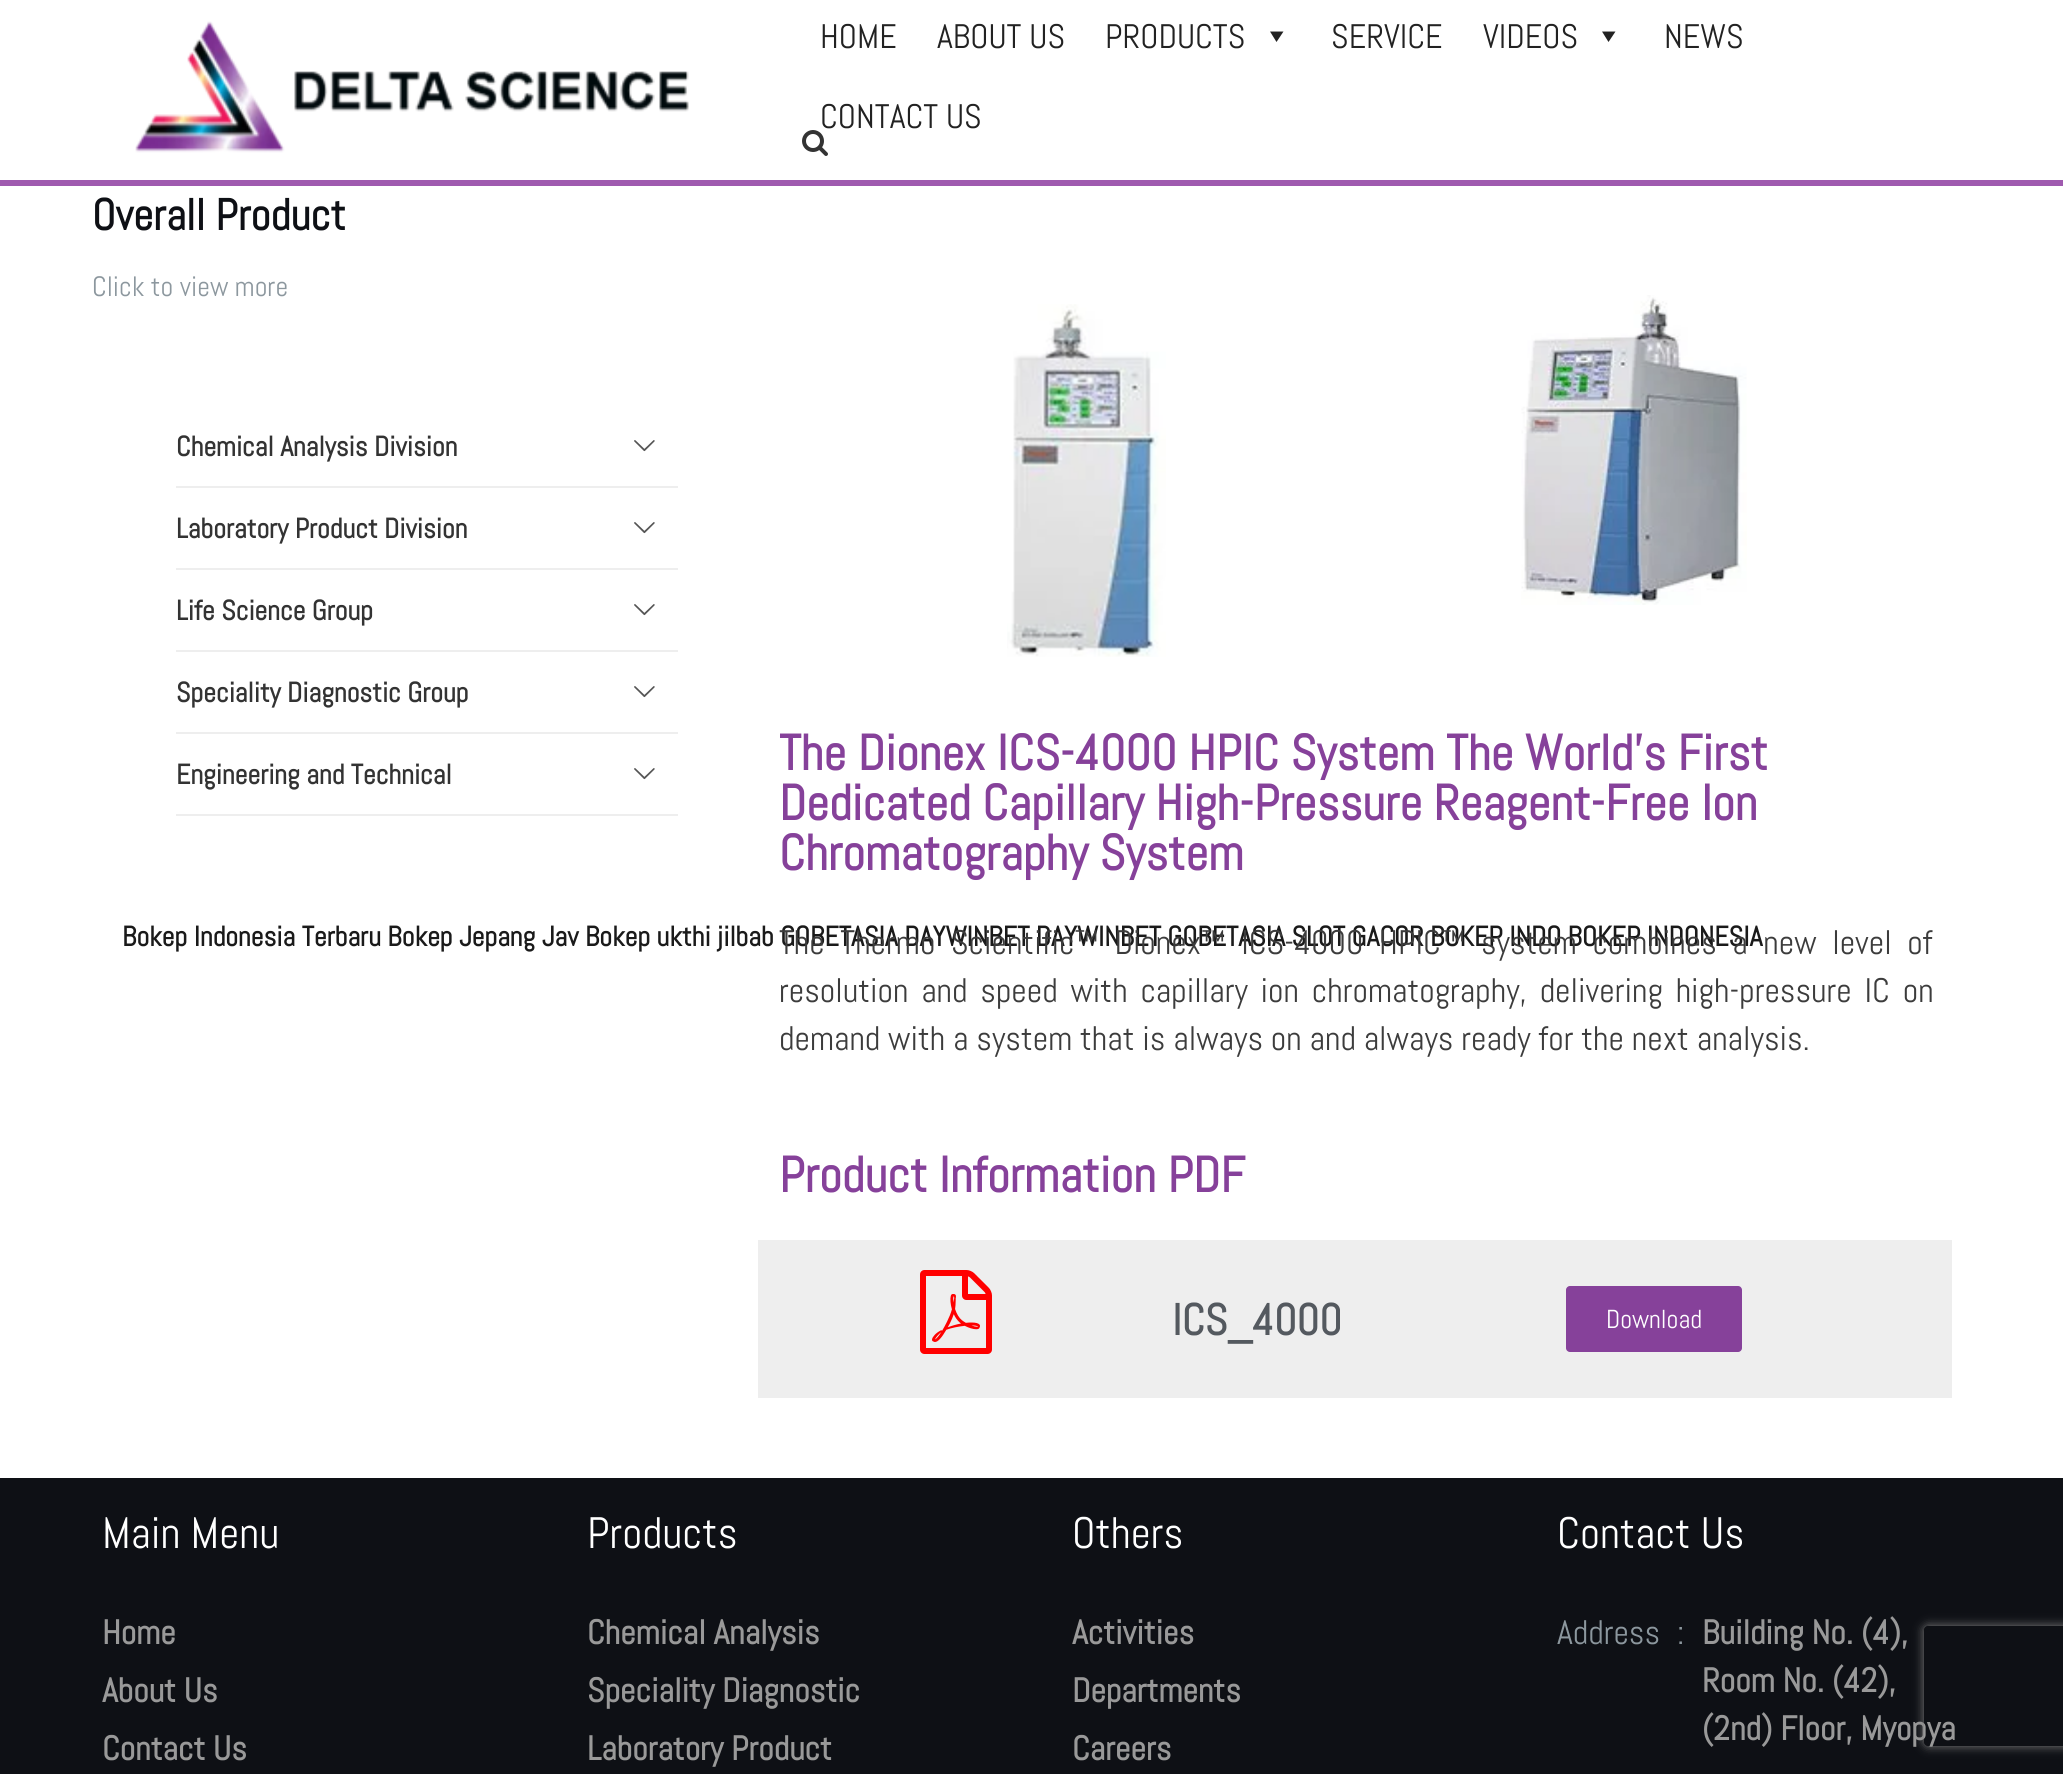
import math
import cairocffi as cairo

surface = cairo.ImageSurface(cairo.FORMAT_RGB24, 2063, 1774)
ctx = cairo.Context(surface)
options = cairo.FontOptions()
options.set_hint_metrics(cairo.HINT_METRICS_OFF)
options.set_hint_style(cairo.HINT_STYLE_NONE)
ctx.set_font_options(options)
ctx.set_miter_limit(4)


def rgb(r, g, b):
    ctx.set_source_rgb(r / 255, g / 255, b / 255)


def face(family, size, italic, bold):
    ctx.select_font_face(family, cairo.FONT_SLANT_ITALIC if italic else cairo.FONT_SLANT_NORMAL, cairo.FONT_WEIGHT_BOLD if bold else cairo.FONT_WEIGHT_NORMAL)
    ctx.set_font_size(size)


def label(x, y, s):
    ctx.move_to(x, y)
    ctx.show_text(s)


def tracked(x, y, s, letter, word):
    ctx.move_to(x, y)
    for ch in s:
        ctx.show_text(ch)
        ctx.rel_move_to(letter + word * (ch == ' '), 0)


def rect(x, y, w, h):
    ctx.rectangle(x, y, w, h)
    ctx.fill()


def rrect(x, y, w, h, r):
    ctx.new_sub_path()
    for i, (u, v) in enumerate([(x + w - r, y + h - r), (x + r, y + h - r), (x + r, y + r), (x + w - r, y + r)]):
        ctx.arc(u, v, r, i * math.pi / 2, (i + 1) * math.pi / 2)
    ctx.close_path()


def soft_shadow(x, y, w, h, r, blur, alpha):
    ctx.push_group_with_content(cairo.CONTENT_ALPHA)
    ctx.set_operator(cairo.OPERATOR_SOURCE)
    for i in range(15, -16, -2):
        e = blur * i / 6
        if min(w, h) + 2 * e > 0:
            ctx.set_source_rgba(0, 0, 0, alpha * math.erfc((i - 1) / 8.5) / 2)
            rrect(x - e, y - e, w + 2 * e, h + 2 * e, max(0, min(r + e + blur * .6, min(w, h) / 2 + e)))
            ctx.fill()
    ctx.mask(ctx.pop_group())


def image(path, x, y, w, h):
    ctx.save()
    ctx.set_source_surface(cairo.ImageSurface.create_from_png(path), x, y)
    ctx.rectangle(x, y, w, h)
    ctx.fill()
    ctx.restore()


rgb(255, 255, 255)
ctx.paint()
rgb(159, 90, 175)
rect(0, 180, 2063, 6)
image('image0.png', 135, 21, 554, 132)
face('Abel', 34, 0, 0)
rgb(34, 34, 34)
label(820, 48, 'HOME')
label(937, 48, 'ABOUT US')
label(1105, 48, 'PRODUCTS')
ctx.new_path()
ctx.move_to(1283.5, 31.5)
ctx.line_to(1276.5, 42)
ctx.line_to(1270, 31.5)
ctx.close_path()
ctx.fill()
label(1331, 48, 'SERVICE')
label(1483, 48, 'VIDEOS')
ctx.new_path()
ctx.move_to(1615.5, 31.5)
ctx.line_to(1608.5, 42)
ctx.line_to(1602, 31.5)
ctx.close_path()
ctx.fill()
label(1664, 48, 'NEWS')
label(820, 128, 'CONTACT US')
image('image1.png', 802, 130, 26, 26)
face('Abel', 44, 0, 1)
rgb(14, 16, 21)
label(92, 230, 'Overall Product')
face('Abel', 28, 0, 0)
rgb(140, 151, 158)
label(92, 296, 'Click to view more')
rgb(238, 238, 238)
rect(176, 486, 502, 2)
face('Abel', 28, 0, 1)
rgb(51, 51, 51)
label(176, 456, 'Chemical Analysis Division')
image('image2.png', 634, 440, 21, 12)
rgb(238, 238, 238)
rect(176, 568, 502, 2)
rgb(51, 51, 51)
label(176, 538, 'Laboratory Product Division')
image('image2.png', 634, 522, 21, 12)
rgb(238, 238, 238)
rect(176, 650, 502, 2)
rgb(51, 51, 51)
label(176, 620, 'Life Science Group')
image('image2.png', 634, 604, 21, 12)
rgb(238, 238, 238)
rect(176, 732, 502, 2)
rgb(51, 51, 51)
label(176, 702, 'Speciality Diagnostic Group')
image('image2.png', 634, 686, 21, 12)
rgb(238, 238, 238)
rect(176, 814, 502, 2)
rgb(51, 51, 51)
label(176, 784, 'Engineering and Technical')
image('image2.png', 634, 768, 21, 12)
rgb(26, 26, 26)
label(122, 946, 'Bokep Indonesia Terbaru Bokep Jepang Jav Bokep ukthi jilbab GOBETASIA DAYWINBET DAYWINBET GOBETASIA SLOT GACOR BOKEP INDO BOKEP INDONESIA')
image('image3.png', 1007, 304, 159, 353)
image('image4.png', 1521, 295, 226, 310)
face('Abel', 50, 0, 1)
rgb(134, 65, 154)
label(779, 770, 'The Dionex ICS-4000 HPIC System The World’s First')
label(779, 820, 'Dedicated Capillary High-Pressure Reagent-Free Ion')
label(779, 870, 'Chromatography System')
face('Abel', 34, 0, 0)
rgb(60, 60, 60)
tracked(779, 954, 'The Thermo Scientific™ Dionex™ ICS-4000 HPIC™ system combines a new level of', 0, 7.75)
tracked(779, 1002, 'resolution and speed with capillary ion chromatography, delivering high-pressure IC on', 0, 5)
label(779, 1050, 'demand with a system that is always on and always ready for the next analysis.')
face('Abel', 50, 0, 1)
rgb(134, 65, 154)
label(779, 1192, 'Product Information PDF')
rgb(238, 238, 238)
rect(758, 1240, 1194, 158)
image('image5.png', 920, 1270, 72, 84)
face('Abel', 44, 0, 1)
rgb(84, 89, 95)
label(1172, 1335, 'ICS_4000')
rgb(134, 65, 154)
rrect(1566, 1286, 176, 66, 4)
ctx.fill()
face('Abel', 26, 0, 0)
rgb(255, 255, 255)
label(1606, 1328, 'Download')
rgb(14, 16, 21)
rect(0, 1478, 2063, 296)
face('Abel', 44, 0, 0)
rgb(255, 255, 255)
label(102, 1548, 'Main Menu')
face('Abel', 34, 0, 1)
rgb(153, 153, 153)
label(102, 1644, 'Home')
label(102, 1702, 'About Us')
label(102, 1760, 'Contact Us')
face('Abel', 44, 0, 0)
rgb(255, 255, 255)
label(587, 1548, 'Products')
face('Abel', 34, 0, 1)
rgb(153, 153, 153)
label(587, 1644, 'Chemical Analysis')
label(587, 1702, 'Speciality Diagnostic')
label(587, 1760, 'Laboratory Product')
face('Abel', 44, 0, 0)
rgb(255, 255, 255)
label(1072, 1548, 'Others')
face('Abel', 34, 0, 1)
rgb(153, 153, 153)
label(1072, 1644, 'Activities')
label(1072, 1702, 'Departments')
label(1072, 1760, 'Careers')
face('Abel', 44, 0, 0)
rgb(255, 255, 255)
label(1557, 1548, 'Contact Us')
face('Abel', 34, 0, 0)
rgb(140, 151, 158)
label(1557, 1644, 'Address')
label(1677, 1644, ':')
face('Abel', 34, 0, 1)
rgb(153, 153, 153)
label(1702, 1644, 'Building No. (4),')
label(1702, 1692, 'Room No. (42),')
label(1702, 1740, '(2nd) Floor, Myopya')
ctx.save()
ctx.set_fill_rule(cairo.FILL_RULE_EVEN_ODD)
ctx.new_path()
ctx.move_to(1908, 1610)
ctx.line_to(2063, 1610)
ctx.line_to(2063, 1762)
ctx.line_to(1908, 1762)
ctx.close_path()
ctx.move_to(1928, 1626)
ctx.line_to(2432, 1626)
ctx.curve_to(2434, 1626, 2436, 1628, 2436, 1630)
ctx.line_to(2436, 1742)
ctx.curve_to(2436, 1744, 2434, 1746, 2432, 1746)
ctx.line_to(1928, 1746)
ctx.curve_to(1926, 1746, 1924, 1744, 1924, 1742)
ctx.line_to(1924, 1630)
ctx.curve_to(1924, 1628, 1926, 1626, 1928, 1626)
ctx.close_path()
ctx.clip()
rgb(128, 128, 128)
soft_shadow(1924, 1626, 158, 120, 4, 5, 1)
ctx.restore()
surface.write_to_png('render.png')
